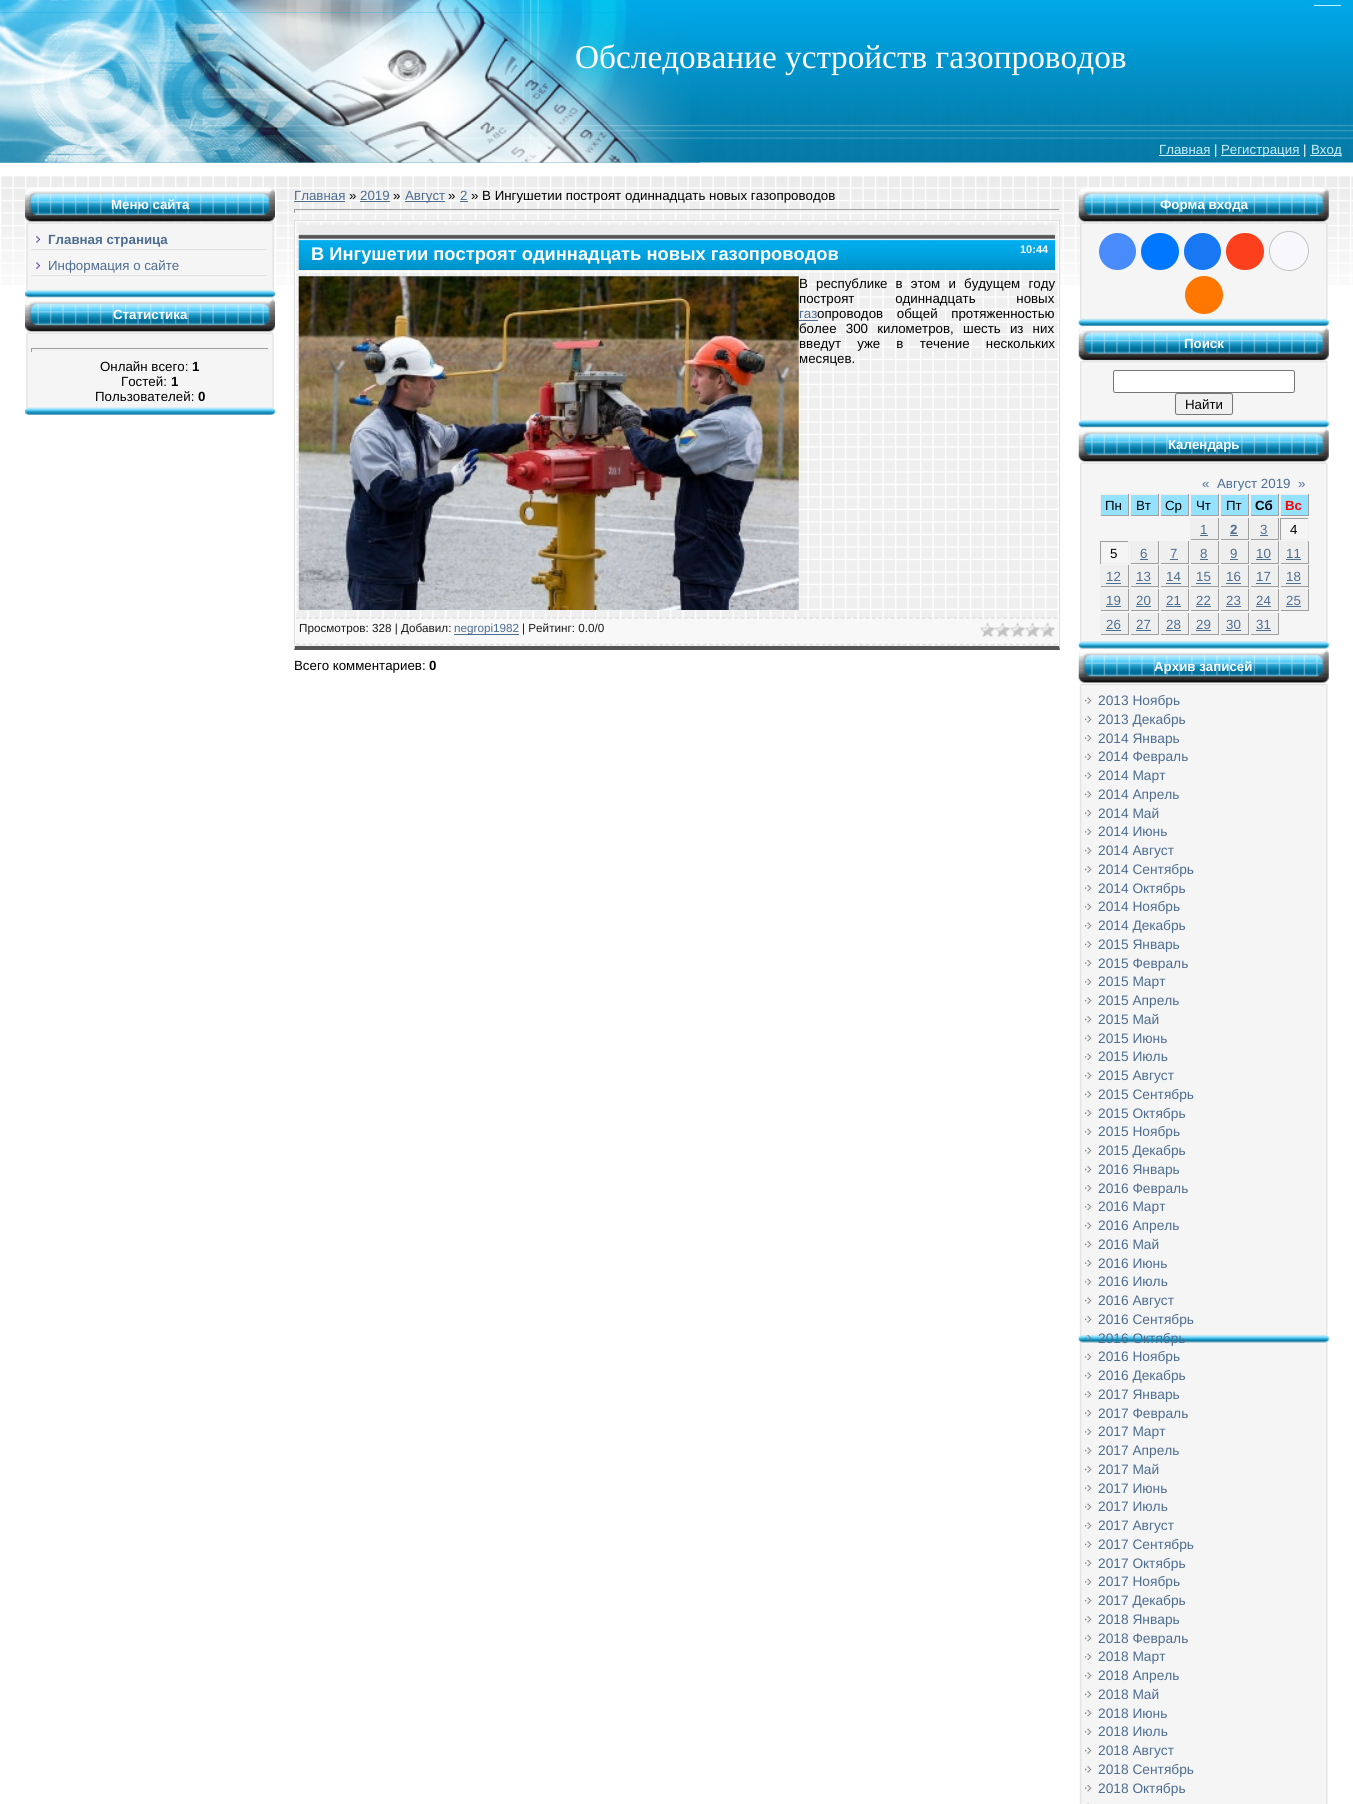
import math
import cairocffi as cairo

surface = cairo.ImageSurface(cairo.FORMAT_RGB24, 1353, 1804)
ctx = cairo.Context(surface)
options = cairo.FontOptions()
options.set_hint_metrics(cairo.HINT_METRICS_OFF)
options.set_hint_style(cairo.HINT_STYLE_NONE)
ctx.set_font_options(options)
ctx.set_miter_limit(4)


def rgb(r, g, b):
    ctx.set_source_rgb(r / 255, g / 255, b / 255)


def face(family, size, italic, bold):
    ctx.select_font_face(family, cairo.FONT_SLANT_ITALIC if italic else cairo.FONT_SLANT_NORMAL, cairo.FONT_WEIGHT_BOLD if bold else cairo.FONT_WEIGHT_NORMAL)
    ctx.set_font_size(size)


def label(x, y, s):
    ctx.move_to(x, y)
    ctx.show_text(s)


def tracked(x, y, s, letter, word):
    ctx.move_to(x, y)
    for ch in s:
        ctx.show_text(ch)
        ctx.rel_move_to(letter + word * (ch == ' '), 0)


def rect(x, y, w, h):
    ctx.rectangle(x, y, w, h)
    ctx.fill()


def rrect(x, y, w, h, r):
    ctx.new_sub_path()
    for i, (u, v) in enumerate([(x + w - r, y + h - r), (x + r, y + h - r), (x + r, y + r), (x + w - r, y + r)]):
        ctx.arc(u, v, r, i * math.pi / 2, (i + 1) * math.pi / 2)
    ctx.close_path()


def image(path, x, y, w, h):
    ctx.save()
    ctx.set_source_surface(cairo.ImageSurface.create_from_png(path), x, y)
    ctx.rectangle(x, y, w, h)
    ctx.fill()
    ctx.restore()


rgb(255, 255, 255)
ctx.paint()
image('image0.png', 0, 0, 1353, 285)
image('image1.png', 0, 0, 627, 13)
rgb(197, 240, 255)
rect(1314, 5, 27, 1)
image('image2.png', 0, 12, 690, 113)
face('Liberation Serif', 33.3, 0, 0)
rgb(255, 255, 255)
label(575, 68, 'Обследование устройств газопроводов')
image('image3.png', 0, 125, 700, 38)
face('Liberation Sans', 13.3, 0, 0)
rgb(197, 240, 255)
label(1159, 154, 'Главная')
rect(1159, 155, 51, 1)
rgb(255, 255, 255)
label(1214, 154, '|')
rgb(197, 240, 255)
rect(1221, 155, 79, 1)
label(1221, 154, 'Регистрация')
rgb(255, 255, 255)
label(1303, 154, '|')
rgb(197, 240, 255)
rect(1310, 155, 31, 1)
label(1311, 154, 'Вход')
image('image4.png', 25, 187, 250, 38)
face('Liberation Sans', 13.3, 0, 1)
rgb(255, 255, 255)
label(111, 209, 'Меню сайта')
image('image5.png', 25, 225, 250, 73)
image('image6.png', 35, 236, 5, 7)
rgb(225, 225, 225)
rect(31, 249, 235, 1)
rgb(77, 109, 145)
label(48, 244, 'Главная страница')
image('image7.png', 35, 262, 5, 7)
rgb(225, 225, 225)
rect(31, 275, 235, 1)
face('Liberation Sans', 13.3, 0, 0)
rgb(77, 109, 145)
label(48, 270, 'Информация о сайте')
image('image8.png', 25, 297, 250, 38)
face('Liberation Sans', 13.3, 0, 1)
rgb(255, 255, 255)
label(113, 319, 'Статистика')
image('image9.png', 25, 335, 250, 80)
rgb(159, 159, 159)
rect(31, 348, 238, 1)
rgb(238, 238, 238)
rect(268, 348, 1, 4)
rect(31, 350, 238, 1)
rgb(159, 159, 159)
rect(31, 348, 1, 4)
face('Liberation Sans', 13.3, 0, 0)
rgb(0, 0, 0)
label(100, 371, 'Онлайн всего:')
face('Liberation Sans', 13.3, 0, 1)
label(192, 371, '1')
face('Liberation Sans', 13.3, 0, 0)
label(121, 386, 'Гостей:')
face('Liberation Sans', 13.3, 0, 1)
label(171, 386, '1')
face('Liberation Sans', 13.3, 0, 0)
label(95, 401, 'Пользователей:')
face('Liberation Sans', 13.3, 0, 1)
label(198, 401, '0')
face('Liberation Sans', 13.3, 0, 0)
rgb(77, 109, 145)
label(294, 200, 'Главная')
rect(294, 201, 51, 1)
rgb(0, 0, 0)
label(349, 200, '»')
rgb(77, 109, 145)
label(360, 200, '2019')
rect(360, 201, 30, 1)
rgb(0, 0, 0)
label(393, 200, '»')
rgb(77, 109, 145)
rect(405, 201, 40, 1)
label(405, 200, 'Август')
rgb(0, 0, 0)
label(448, 200, '»')
rgb(77, 109, 145)
label(460, 200, '2')
rect(460, 201, 8, 1)
rgb(0, 0, 0)
label(471, 200, '» В Ингушетии построят одиннадцать новых газопроводов')
rgb(159, 159, 159)
rect(294, 209, 766, 1)
rgb(238, 238, 238)
rect(1059, 209, 1, 4)
rect(294, 211, 766, 1)
rgb(159, 159, 159)
rect(294, 209, 1, 4)
image('image10.png', 293, 220, 767, 430)
rgb(222, 223, 222)
rect(294, 220, 766, 1)
ctx.new_path()
ctx.move_to(1060, 220)
ctx.line_to(1060, 650)
ctx.line_to(1059, 646)
ctx.line_to(1059, 221)
ctx.close_path()
ctx.fill()
rgb(85, 85, 85)
ctx.new_path()
ctx.move_to(1060, 650)
ctx.line_to(294, 650)
ctx.line_to(295, 646)
ctx.line_to(1059, 646)
ctx.close_path()
ctx.fill()
rgb(222, 223, 222)
ctx.new_path()
ctx.move_to(294, 650)
ctx.line_to(294, 220)
ctx.line_to(295, 221)
ctx.line_to(295, 646)
ctx.close_path()
ctx.fill()
image('image11.png', 298, 225, 757, 45)
face('Liberation Sans', 18.3, 0, 1)
rgb(255, 255, 255)
label(311, 260, 'В Ингушетии построят одиннадцать новых газопроводов')
face('Liberation Sans', 11, 0, 1)
label(1020, 253, '10:44')
image('image12.png', 298, 276, 501, 334)
face('Liberation Sans', 13.3, 0, 0)
rgb(0, 0, 0)
tracked(799, 288, 'В республике в этом и будущем году', 0, 4.5)
tracked(799, 303, 'построят одиннадцать новых', 0, 37)
rgb(77, 109, 145)
label(799, 318, 'газ')
rect(799, 320, 19, 1)
rgb(0, 0, 0)
tracked(817, 318, 'опроводов общей протяженностью', 0, 10)
tracked(799, 333, 'более 300 километров, шесть из них', 0, 5.5)
tracked(799, 348, 'введут уже в течение нескольких', 0, 12.5)
label(799, 363, 'месяцев.')
rgb(248, 248, 248)
rect(296, 618, 762, 27)
ctx.new_path()
ctx.move_to(296, 618)
ctx.line_to(1057.5, 618)
rgb(221, 221, 221)
ctx.set_line_width(1.2)
ctx.set_dash([3.75, 2.51])
ctx.stroke()
ctx.new_path()
ctx.move_to(296, 644.5)
ctx.line_to(1057.5, 644.5)
ctx.stroke()
face('Liberation Sans', 11.7, 0, 0)
rgb(26, 26, 26)
label(299, 632, 'Просмотров: 328 | Добавил:')
rgb(77, 109, 145)
rect(454, 634, 65, 1)
label(454, 632, 'negropi1982')
rgb(26, 26, 26)
label(522, 632, '| Рейтинг: 0.0/0')
image('image13.png', 980, 622, 75, 16)
face('Liberation Sans', 13.3, 0, 0)
rgb(0, 0, 0)
label(294, 670, 'Всего комментариев:')
face('Liberation Sans', 13.3, 0, 1)
label(429, 670, '0')
image('image14.png', 1078, 187, 251, 38)
rgb(255, 255, 255)
label(1160, 209, 'Форма входа')
image('image15.png', 1078, 225, 251, 102)
rgb(73, 139, 250)
ctx.arc(1117.5, 251.5, 18.5, 0, 2 * math.pi)
ctx.fill()
rgb(0, 119, 255)
rrect(1141, 233, 38, 37, 18.5)
ctx.fill()
rgb(24, 119, 242)
ctx.arc(1202.5, 251.5, 18.5, 0, 2 * math.pi)
ctx.fill()
rgb(252, 63, 29)
rrect(1226, 233, 38, 37, 18.5)
ctx.fill()
rgb(248, 248, 252)
ctx.arc(1289, 251, 19.5, 0, 2 * math.pi)
ctx.fill_preserve()
rgb(196, 196, 196)
ctx.set_line_width(1)
ctx.set_dash([])
ctx.stroke()
rgb(255, 119, 0)
ctx.arc(1204, 295, 19, 0, 2 * math.pi)
ctx.fill()
image('image16.png', 1078, 326, 251, 38)
rgb(255, 255, 255)
label(1184, 348, 'Поиск')
image('image17.png', 1078, 364, 251, 64)
rrect(1113.5, 370.5, 181, 22, 2)
ctx.fill_preserve()
rgb(118, 118, 118)
ctx.stroke()
rgb(239, 239, 239)
rrect(1175.5, 393.5, 57, 21, 2)
ctx.fill_preserve()
rgb(118, 118, 118)
ctx.stroke()
face('Liberation Sans', 13.3, 0, 0)
rgb(0, 0, 0)
label(1185, 409, 'Найти')
image('image18.png', 1078, 427, 251, 38)
face('Liberation Sans', 13.3, 0, 1)
rgb(255, 255, 255)
label(1168, 449, 'Календарь')
image('image19.png', 1078, 465, 251, 184)
face('Liberation Sans', 13.3, 0, 0)
rgb(77, 109, 145)
label(1202, 488, '«')
label(1217, 488, 'Август 2019')
label(1298, 488, '»')
rgb(149, 226, 255)
rect(1101, 495, 27, 20)
rgb(238, 238, 238)
rect(1100, 494, 29, 1)
rgb(159, 159, 159)
rect(1128, 494, 1, 22)
rect(1100, 515, 29, 1)
rgb(238, 238, 238)
rect(1100, 494, 1, 22)
rgb(0, 0, 0)
label(1105, 510, 'Пн')
rgb(149, 226, 255)
rect(1131, 495, 27, 20)
rgb(238, 238, 238)
rect(1130, 494, 29, 1)
rgb(159, 159, 159)
rect(1158, 494, 1, 22)
rect(1130, 515, 29, 1)
rgb(238, 238, 238)
rect(1130, 494, 1, 22)
rgb(0, 0, 0)
label(1136, 510, 'Вт')
rgb(149, 226, 255)
rect(1161, 495, 27, 20)
rgb(238, 238, 238)
rect(1160, 494, 29, 1)
rgb(159, 159, 159)
rect(1188, 494, 1, 22)
rect(1160, 515, 29, 1)
rgb(238, 238, 238)
rect(1160, 494, 1, 22)
rgb(0, 0, 0)
label(1165, 510, 'Ср')
rgb(149, 226, 255)
rect(1191, 495, 27, 20)
rgb(238, 238, 238)
rect(1190, 494, 29, 1)
rgb(159, 159, 159)
rect(1218, 494, 1, 22)
rect(1190, 515, 29, 1)
rgb(238, 238, 238)
rect(1190, 494, 1, 22)
rgb(0, 0, 0)
label(1196, 510, 'Чт')
rgb(149, 226, 255)
rect(1221, 495, 27, 20)
rgb(238, 238, 238)
rect(1220, 494, 29, 1)
rgb(159, 159, 159)
rect(1248, 494, 1, 22)
rect(1220, 515, 29, 1)
rgb(238, 238, 238)
rect(1220, 494, 1, 22)
rgb(0, 0, 0)
label(1226, 510, 'Пт')
rgb(149, 226, 255)
rect(1251, 495, 27, 20)
rgb(238, 238, 238)
rect(1250, 494, 29, 1)
rgb(159, 159, 159)
rect(1278, 494, 1, 22)
rect(1250, 515, 29, 1)
rgb(238, 238, 238)
rect(1250, 494, 1, 22)
face('Liberation Sans', 13.3, 0, 1)
rgb(0, 0, 0)
label(1255, 510, 'Сб')
rgb(149, 226, 255)
rect(1281, 495, 27, 20)
rgb(238, 238, 238)
rect(1280, 494, 29, 1)
rgb(159, 159, 159)
rect(1308, 494, 1, 22)
rect(1280, 515, 29, 1)
rgb(238, 238, 238)
rect(1280, 494, 1, 22)
rgb(255, 0, 0)
label(1285, 510, 'Вс')
rgb(239, 239, 239)
rect(1191, 518, 27, 21)
rgb(159, 159, 159)
rect(1218, 518, 1, 22)
rect(1190, 539, 29, 1)
rgb(238, 238, 238)
rect(1190, 518, 1, 22)
face('Liberation Sans', 13.3, 0, 0)
rgb(77, 109, 145)
label(1200, 534, '1')
rect(1200, 535, 8, 1)
rgb(239, 239, 239)
rect(1221, 518, 27, 21)
rgb(159, 159, 159)
rect(1248, 518, 1, 22)
rect(1220, 539, 29, 1)
rgb(238, 238, 238)
rect(1220, 518, 1, 22)
face('Liberation Sans', 13.3, 0, 1)
rgb(77, 109, 145)
label(1230, 534, '2')
rect(1230, 535, 8, 1)
rgb(239, 239, 239)
rect(1251, 518, 27, 21)
rgb(159, 159, 159)
rect(1278, 518, 1, 22)
rect(1250, 539, 29, 1)
rgb(238, 238, 238)
rect(1250, 518, 1, 22)
face('Liberation Sans', 13.3, 0, 0)
rgb(77, 109, 145)
label(1260, 534, '3')
rect(1260, 535, 8, 1)
rgb(159, 159, 159)
rect(1280, 518, 29, 1)
rgb(238, 238, 238)
rect(1308, 518, 1, 22)
rect(1280, 539, 29, 1)
rgb(159, 159, 159)
rect(1280, 518, 1, 22)
rgb(0, 0, 0)
label(1290, 534, '4')
rgb(159, 159, 159)
rect(1100, 541, 29, 1)
rgb(238, 238, 238)
rect(1128, 541, 1, 23)
rect(1100, 563, 29, 1)
rgb(159, 159, 159)
rect(1100, 541, 1, 23)
rgb(0, 0, 0)
label(1110, 558, '5')
rgb(239, 239, 239)
rect(1131, 541, 27, 22)
rgb(159, 159, 159)
rect(1158, 541, 1, 23)
rect(1130, 563, 29, 1)
rgb(238, 238, 238)
rect(1130, 541, 1, 23)
rgb(77, 109, 145)
label(1140, 558, '6')
rect(1140, 559, 8, 1)
rgb(239, 239, 239)
rect(1161, 541, 27, 22)
rgb(159, 159, 159)
rect(1188, 541, 1, 23)
rect(1160, 563, 29, 1)
rgb(238, 238, 238)
rect(1160, 541, 1, 23)
rgb(77, 109, 145)
label(1170, 558, '7')
rect(1170, 559, 8, 1)
rgb(239, 239, 239)
rect(1191, 541, 27, 22)
rgb(159, 159, 159)
rect(1218, 541, 1, 23)
rect(1190, 563, 29, 1)
rgb(238, 238, 238)
rect(1190, 541, 1, 23)
rgb(77, 109, 145)
label(1200, 558, '8')
rect(1200, 559, 8, 1)
rgb(239, 239, 239)
rect(1221, 541, 27, 22)
rgb(159, 159, 159)
rect(1248, 541, 1, 23)
rect(1220, 563, 29, 1)
rgb(238, 238, 238)
rect(1220, 541, 1, 23)
rgb(77, 109, 145)
label(1230, 558, '9')
rect(1230, 559, 8, 1)
rgb(239, 239, 239)
rect(1251, 541, 27, 22)
rgb(159, 159, 159)
rect(1278, 541, 1, 23)
rect(1250, 563, 29, 1)
rgb(238, 238, 238)
rect(1250, 541, 1, 23)
rgb(77, 109, 145)
label(1256, 558, '10')
rect(1256, 559, 15, 1)
rgb(239, 239, 239)
rect(1281, 541, 27, 22)
rgb(159, 159, 159)
rect(1308, 541, 1, 23)
rect(1280, 563, 29, 1)
rgb(238, 238, 238)
rect(1280, 541, 1, 23)
rgb(77, 109, 145)
label(1286, 558, '11')
rect(1286, 559, 15, 1)
rgb(239, 239, 239)
rect(1101, 565, 27, 23)
rgb(159, 159, 159)
rect(1128, 565, 1, 23)
rect(1100, 586, 29, 1)
rgb(238, 238, 238)
rect(1100, 565, 1, 23)
rgb(77, 109, 145)
label(1106, 581, '12')
rect(1106, 583, 15, 1)
rgb(239, 239, 239)
rect(1131, 565, 27, 23)
rgb(159, 159, 159)
rect(1158, 565, 1, 23)
rect(1130, 586, 29, 1)
rgb(238, 238, 238)
rect(1130, 565, 1, 23)
rgb(77, 109, 145)
label(1136, 581, '13')
rect(1136, 583, 15, 1)
rgb(239, 239, 239)
rect(1161, 565, 27, 23)
rgb(159, 159, 159)
rect(1188, 565, 1, 23)
rect(1160, 586, 29, 1)
rgb(238, 238, 238)
rect(1160, 565, 1, 23)
rgb(77, 109, 145)
label(1166, 581, '14')
rect(1166, 583, 15, 1)
rgb(239, 239, 239)
rect(1191, 565, 27, 23)
rgb(159, 159, 159)
rect(1218, 565, 1, 23)
rect(1190, 586, 29, 1)
rgb(238, 238, 238)
rect(1190, 565, 1, 23)
rgb(77, 109, 145)
label(1196, 581, '15')
rect(1196, 583, 15, 1)
rgb(239, 239, 239)
rect(1221, 565, 27, 23)
rgb(159, 159, 159)
rect(1248, 565, 1, 23)
rect(1220, 586, 29, 1)
rgb(238, 238, 238)
rect(1220, 565, 1, 23)
rgb(77, 109, 145)
label(1226, 581, '16')
rect(1226, 583, 15, 1)
rgb(239, 239, 239)
rect(1251, 565, 27, 23)
rgb(159, 159, 159)
rect(1278, 565, 1, 23)
rect(1250, 586, 29, 1)
rgb(238, 238, 238)
rect(1250, 565, 1, 23)
rgb(77, 109, 145)
label(1256, 581, '17')
rect(1256, 583, 15, 1)
rgb(239, 239, 239)
rect(1281, 565, 27, 23)
rgb(159, 159, 159)
rect(1308, 565, 1, 23)
rect(1280, 586, 29, 1)
rgb(238, 238, 238)
rect(1280, 565, 1, 23)
rgb(77, 109, 145)
label(1286, 581, '18')
rect(1286, 583, 15, 1)
rgb(239, 239, 239)
rect(1101, 589, 27, 21)
rgb(159, 159, 159)
rect(1128, 589, 1, 22)
rect(1100, 610, 29, 1)
rgb(238, 238, 238)
rect(1100, 589, 1, 22)
rgb(77, 109, 145)
label(1106, 605, '19')
rect(1106, 606, 15, 1)
rgb(239, 239, 239)
rect(1131, 589, 27, 21)
rgb(159, 159, 159)
rect(1158, 589, 1, 22)
rect(1130, 610, 29, 1)
rgb(238, 238, 238)
rect(1130, 589, 1, 22)
rgb(77, 109, 145)
label(1136, 605, '20')
rect(1136, 606, 15, 1)
rgb(239, 239, 239)
rect(1161, 589, 27, 21)
rgb(159, 159, 159)
rect(1188, 589, 1, 22)
rect(1160, 610, 29, 1)
rgb(238, 238, 238)
rect(1160, 589, 1, 22)
rgb(77, 109, 145)
label(1166, 605, '21')
rect(1166, 606, 15, 1)
rgb(239, 239, 239)
rect(1191, 589, 27, 21)
rgb(159, 159, 159)
rect(1218, 589, 1, 22)
rect(1190, 610, 29, 1)
rgb(238, 238, 238)
rect(1190, 589, 1, 22)
rgb(77, 109, 145)
label(1196, 605, '22')
rect(1196, 606, 15, 1)
rgb(239, 239, 239)
rect(1221, 589, 27, 21)
rgb(159, 159, 159)
rect(1248, 589, 1, 22)
rect(1220, 610, 29, 1)
rgb(238, 238, 238)
rect(1220, 589, 1, 22)
rgb(77, 109, 145)
label(1226, 605, '23')
rect(1226, 606, 15, 1)
rgb(239, 239, 239)
rect(1251, 589, 27, 21)
rgb(159, 159, 159)
rect(1278, 589, 1, 22)
rect(1250, 610, 29, 1)
rgb(238, 238, 238)
rect(1250, 589, 1, 22)
rgb(77, 109, 145)
label(1256, 605, '24')
rect(1256, 606, 15, 1)
rgb(239, 239, 239)
rect(1281, 589, 27, 21)
rgb(159, 159, 159)
rect(1308, 589, 1, 22)
rect(1280, 610, 29, 1)
rgb(238, 238, 238)
rect(1280, 589, 1, 22)
rgb(77, 109, 145)
label(1286, 605, '25')
rect(1286, 606, 15, 1)
rgb(239, 239, 239)
rect(1101, 613, 27, 21)
rgb(159, 159, 159)
rect(1128, 613, 1, 22)
rect(1100, 634, 29, 1)
rgb(238, 238, 238)
rect(1100, 613, 1, 22)
rgb(77, 109, 145)
label(1106, 629, '26')
rect(1106, 630, 15, 1)
rgb(239, 239, 239)
rect(1131, 613, 27, 21)
rgb(159, 159, 159)
rect(1158, 613, 1, 22)
rect(1130, 634, 29, 1)
rgb(238, 238, 238)
rect(1130, 613, 1, 22)
rgb(77, 109, 145)
label(1136, 629, '27')
rect(1136, 630, 15, 1)
rgb(239, 239, 239)
rect(1161, 613, 27, 21)
rgb(159, 159, 159)
rect(1188, 613, 1, 22)
rect(1160, 634, 29, 1)
rgb(238, 238, 238)
rect(1160, 613, 1, 22)
rgb(77, 109, 145)
label(1166, 629, '28')
rect(1166, 630, 15, 1)
rgb(239, 239, 239)
rect(1191, 613, 27, 21)
rgb(159, 159, 159)
rect(1218, 613, 1, 22)
rect(1190, 634, 29, 1)
rgb(238, 238, 238)
rect(1190, 613, 1, 22)
rgb(77, 109, 145)
label(1196, 629, '29')
rect(1196, 630, 15, 1)
rgb(239, 239, 239)
rect(1221, 613, 27, 21)
rgb(159, 159, 159)
rect(1248, 613, 1, 22)
rect(1220, 634, 29, 1)
rgb(238, 238, 238)
rect(1220, 613, 1, 22)
rgb(77, 109, 145)
label(1226, 629, '30')
rect(1226, 630, 15, 1)
rgb(239, 239, 239)
rect(1251, 613, 27, 21)
rgb(159, 159, 159)
rect(1278, 613, 1, 22)
rect(1250, 634, 29, 1)
rgb(238, 238, 238)
rect(1250, 613, 1, 22)
rgb(77, 109, 145)
label(1256, 629, '31')
rect(1256, 630, 15, 1)
image('image20.png', 1078, 648, 251, 39)
face('Liberation Sans', 13.3, 0, 1)
rgb(255, 255, 255)
label(1154, 671, 'Архив записей')
image('image21.png', 1078, 686, 251, 1118)
image('image22.png', 1085, 697, 7, 7)
face('Liberation Sans', 13.75, 0, 0)
rgb(77, 109, 145)
label(1098, 705, '2013 Ноябрь')
image('image23.png', 1085, 716, 7, 7)
label(1098, 724, '2013 Декабрь')
image('image24.png', 1085, 735, 7, 7)
label(1098, 743, '2014 Январь')
image('image25.png', 1085, 753, 7, 7)
label(1098, 761, '2014 Февраль')
image('image22.png', 1085, 772, 7, 7)
label(1098, 780, '2014 Март')
image('image23.png', 1085, 791, 7, 7)
label(1098, 799, '2014 Апрель')
image('image24.png', 1085, 810, 7, 7)
label(1098, 818, '2014 Май')
image('image25.png', 1085, 828, 7, 7)
label(1098, 836, '2014 Июнь')
image('image22.png', 1085, 847, 7, 7)
label(1098, 855, '2014 Август')
image('image23.png', 1085, 866, 7, 7)
label(1098, 874, '2014 Сентябрь')
image('image24.png', 1085, 885, 7, 7)
label(1098, 893, '2014 Октябрь')
image('image25.png', 1085, 903, 7, 7)
label(1098, 911, '2014 Ноябрь')
image('image22.png', 1085, 922, 7, 7)
label(1098, 930, '2014 Декабрь')
image('image23.png', 1085, 941, 7, 7)
label(1098, 949, '2015 Январь')
image('image24.png', 1085, 960, 7, 7)
label(1098, 968, '2015 Февраль')
image('image25.png', 1085, 978, 7, 7)
label(1098, 986, '2015 Март')
image('image22.png', 1085, 997, 7, 7)
label(1098, 1005, '2015 Апрель')
image('image23.png', 1085, 1016, 7, 7)
label(1098, 1024, '2015 Май')
image('image24.png', 1085, 1035, 7, 7)
label(1098, 1043, '2015 Июнь')
image('image25.png', 1085, 1053, 7, 7)
label(1098, 1061, '2015 Июль')
image('image22.png', 1085, 1072, 7, 7)
label(1098, 1080, '2015 Август')
image('image23.png', 1085, 1091, 7, 7)
label(1098, 1099, '2015 Сентябрь')
image('image24.png', 1085, 1110, 7, 7)
label(1098, 1118, '2015 Октябрь')
image('image25.png', 1085, 1128, 7, 7)
label(1098, 1136, '2015 Ноябрь')
image('image22.png', 1085, 1147, 7, 7)
label(1098, 1155, '2015 Декабрь')
image('image23.png', 1085, 1166, 7, 7)
label(1098, 1174, '2016 Январь')
image('image24.png', 1085, 1185, 7, 7)
label(1098, 1193, '2016 Февраль')
image('image25.png', 1085, 1203, 7, 7)
label(1098, 1211, '2016 Март')
image('image22.png', 1085, 1222, 7, 7)
label(1098, 1230, '2016 Апрель')
image('image23.png', 1085, 1241, 7, 7)
label(1098, 1249, '2016 Май')
image('image24.png', 1085, 1260, 7, 7)
label(1098, 1268, '2016 Июнь')
image('image25.png', 1085, 1278, 7, 7)
label(1098, 1286, '2016 Июль')
image('image22.png', 1085, 1297, 7, 7)
label(1098, 1305, '2016 Август')
image('image23.png', 1085, 1316, 7, 7)
label(1098, 1324, '2016 Сентябрь')
image('image26.png', 1085, 1335, 7, 7)
label(1098, 1343, '2016 Октябрь')
image('image25.png', 1085, 1353, 7, 7)
label(1098, 1361, '2016 Ноябрь')
image('image22.png', 1085, 1372, 7, 7)
label(1098, 1380, '2016 Декабрь')
image('image23.png', 1085, 1391, 7, 7)
label(1098, 1399, '2017 Январь')
image('image24.png', 1085, 1410, 7, 7)
label(1098, 1418, '2017 Февраль')
image('image25.png', 1085, 1428, 7, 7)
label(1098, 1436, '2017 Март')
image('image22.png', 1085, 1447, 7, 7)
label(1098, 1455, '2017 Апрель')
image('image23.png', 1085, 1466, 7, 7)
label(1098, 1474, '2017 Май')
image('image24.png', 1085, 1485, 7, 7)
label(1098, 1493, '2017 Июнь')
image('image25.png', 1085, 1503, 7, 7)
label(1098, 1511, '2017 Июль')
image('image22.png', 1085, 1522, 7, 7)
label(1098, 1530, '2017 Август')
image('image23.png', 1085, 1541, 7, 7)
label(1098, 1549, '2017 Сентябрь')
image('image24.png', 1085, 1560, 7, 7)
label(1098, 1568, '2017 Октябрь')
image('image25.png', 1085, 1578, 7, 7)
label(1098, 1586, '2017 Ноябрь')
image('image22.png', 1085, 1597, 7, 7)
label(1098, 1605, '2017 Декабрь')
image('image23.png', 1085, 1616, 7, 7)
label(1098, 1624, '2018 Январь')
image('image24.png', 1085, 1635, 7, 7)
label(1098, 1643, '2018 Февраль')
image('image25.png', 1085, 1653, 7, 7)
label(1098, 1661, '2018 Март')
image('image22.png', 1085, 1672, 7, 7)
label(1098, 1680, '2018 Апрель')
image('image23.png', 1085, 1691, 7, 7)
label(1098, 1699, '2018 Май')
image('image24.png', 1085, 1710, 7, 7)
label(1098, 1718, '2018 Июнь')
image('image25.png', 1085, 1728, 7, 7)
label(1098, 1736, '2018 Июль')
image('image22.png', 1085, 1747, 7, 7)
label(1098, 1755, '2018 Август')
image('image23.png', 1085, 1766, 7, 7)
label(1098, 1774, '2018 Сентябрь')
image('image24.png', 1085, 1785, 7, 7)
label(1098, 1793, '2018 Октябрь')
image('image27.png', 1087, 1803, 2, 1)
surface.write_to_png('render.png')
